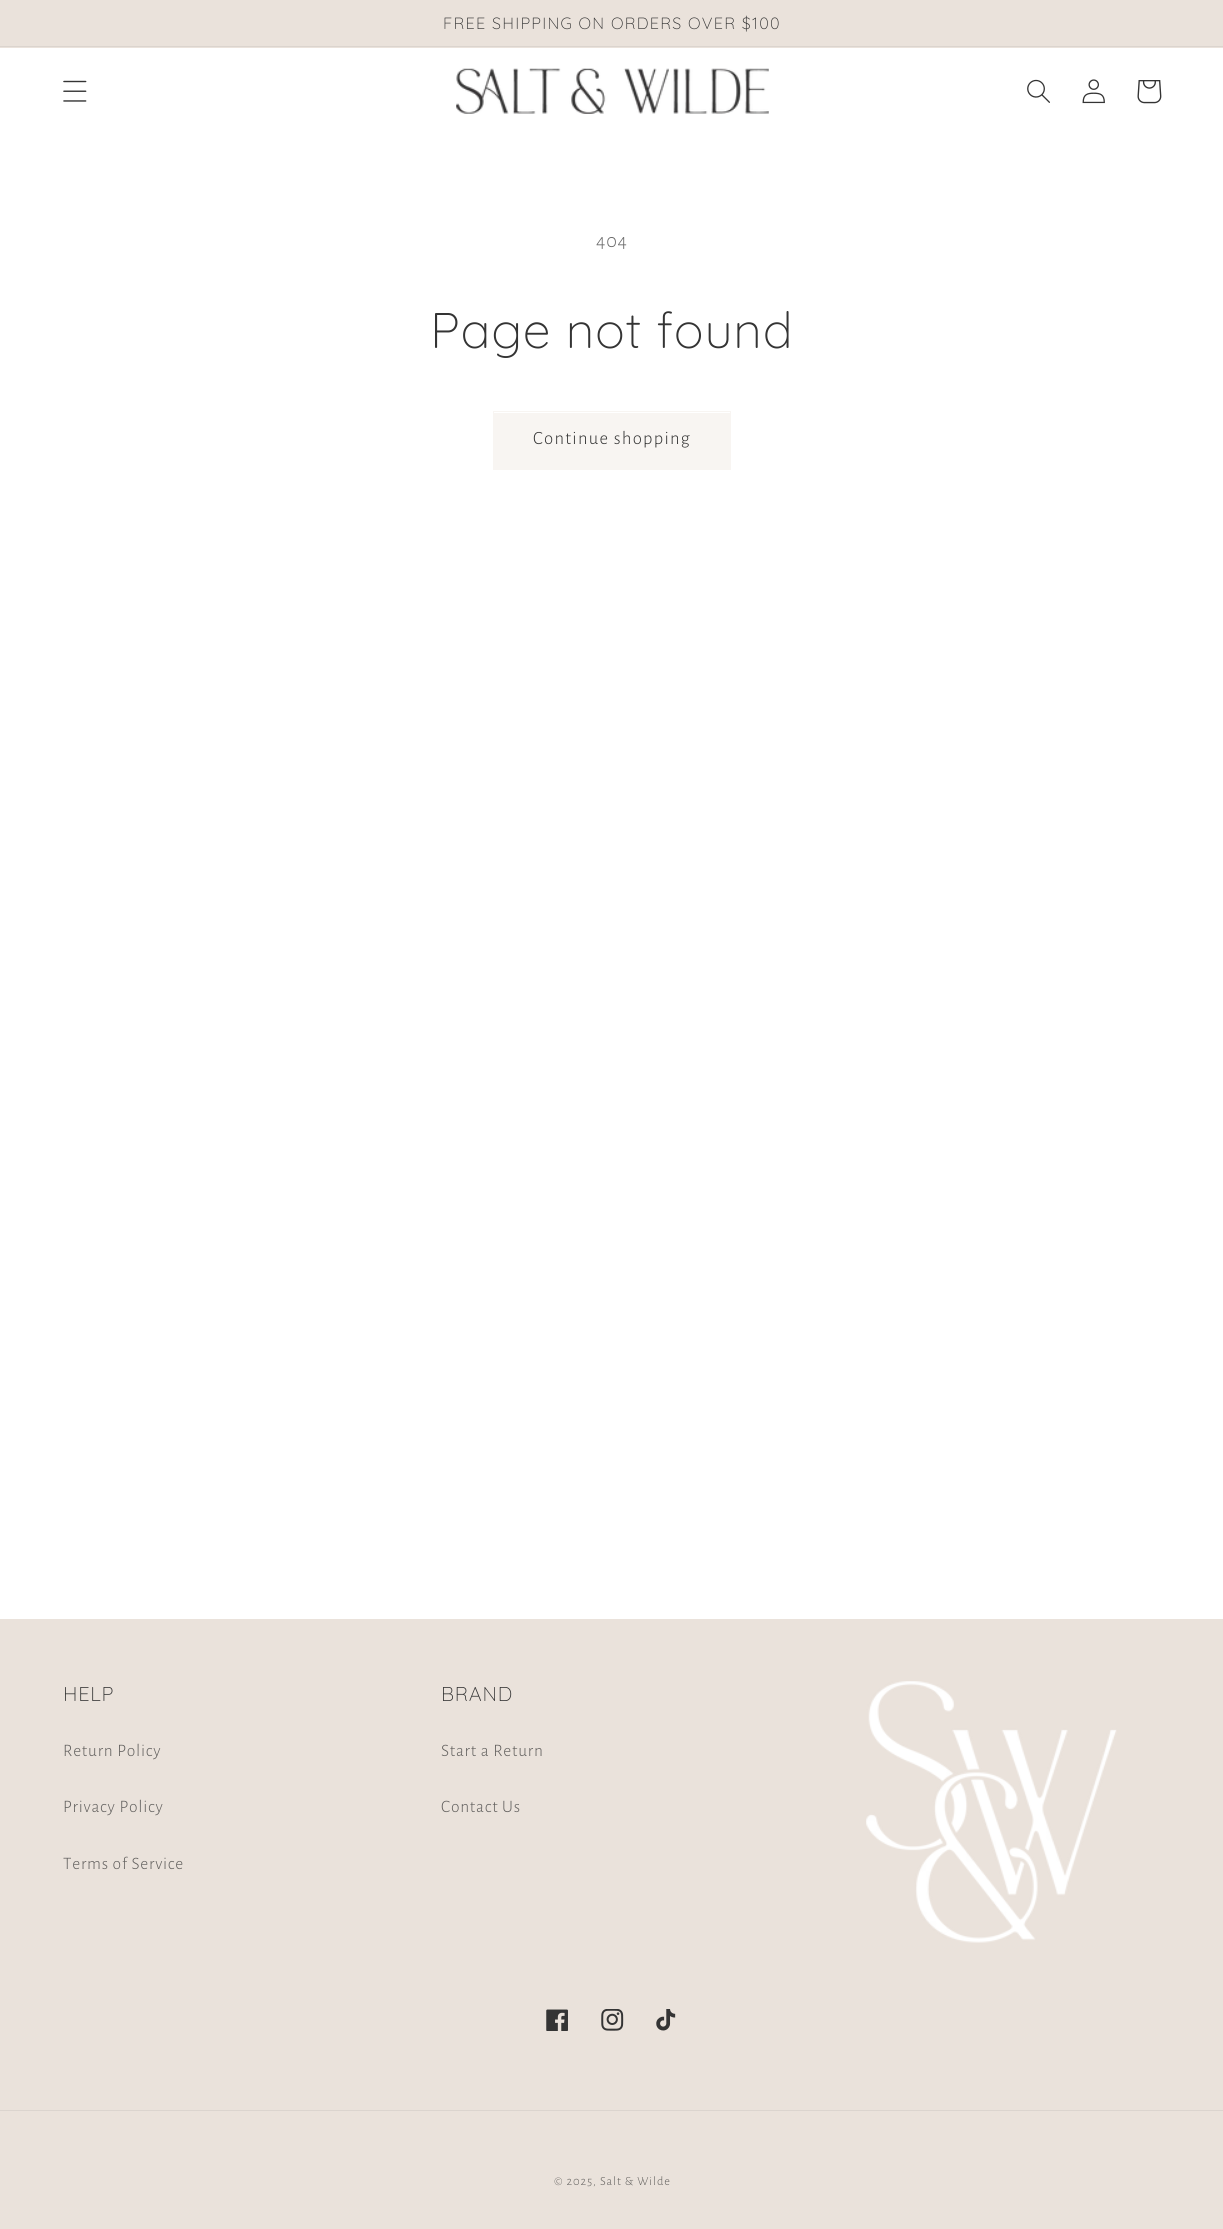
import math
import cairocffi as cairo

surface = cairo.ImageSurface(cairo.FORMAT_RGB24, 1223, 2229)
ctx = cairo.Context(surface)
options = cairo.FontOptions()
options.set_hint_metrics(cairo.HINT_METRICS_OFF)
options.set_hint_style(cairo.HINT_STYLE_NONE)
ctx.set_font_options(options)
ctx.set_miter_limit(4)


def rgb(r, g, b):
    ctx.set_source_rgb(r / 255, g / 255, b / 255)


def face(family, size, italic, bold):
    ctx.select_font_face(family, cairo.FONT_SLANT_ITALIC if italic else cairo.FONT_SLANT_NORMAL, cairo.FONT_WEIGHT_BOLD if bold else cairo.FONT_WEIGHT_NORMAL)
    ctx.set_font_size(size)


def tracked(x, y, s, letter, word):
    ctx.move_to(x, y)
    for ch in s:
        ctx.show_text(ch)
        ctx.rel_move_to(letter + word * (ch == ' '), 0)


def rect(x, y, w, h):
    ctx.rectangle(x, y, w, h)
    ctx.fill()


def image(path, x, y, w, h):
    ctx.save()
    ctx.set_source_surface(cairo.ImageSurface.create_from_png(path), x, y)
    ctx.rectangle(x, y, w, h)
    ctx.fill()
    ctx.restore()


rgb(255, 255, 255)
ctx.paint()
rgb(234, 226, 219)
rect(0, 0, 1223, 48)
rgb(219, 212, 206)
rect(0, 46, 1223, 1)
face('Quicksand Light', 16.25, 0, 0)
rgb(52, 52, 52)
tracked(443, 29, 'FREE SHIPPING ON ORDERS OVER $100', 1.25, 0)
image('image0.png', 63, 80, 24, 22)
image('image1.png', 456, 68, 313, 46)
image('image2.png', 1027, 79, 23, 24)
image('image3.png', 1082, 79, 23, 25)
image('image4.png', 1137, 80, 25, 24)
face('Alegreya Sans Light', 20, 0, 0)
rgb(103, 103, 103)
tracked(596, 247, '404', 0.75, 0)
face('Quicksand Light', 50, 0, 0)
rgb(52, 52, 52)
tracked(430, 348, 'Page not found', 0.75, 0)
ctx.rectangle(493.5, 411.5, 237, 58)
rgb(248, 245, 242)
ctx.set_line_width(1)
ctx.stroke()
rect(494, 413, 236, 56)
face('Alegreya Sans Light', 18.75, 0, 0)
rgb(52, 52, 52)
tracked(533, 444, 'Continue shopping', 1.25, 0)
rgb(234, 226, 219)
rect(0, 1619, 1223, 610)
face('Quicksand Light', 20, 0, 0)
rgb(52, 52, 52)
tracked(63, 1701, 'HELP', 0.75, 0)
face('Alegreya Sans Light', 17.5, 0, 0)
rgb(98, 96, 94)
tracked(63, 1756, 'Return Policy', 0.75, 0)
tracked(63, 1812, 'Privacy Policy', 0.75, 0)
tracked(63, 1869, 'Terms of Service', 0.75, 0)
face('Quicksand Light', 20, 0, 0)
rgb(52, 52, 52)
tracked(441, 1701, 'BRAND', 0.75, 0)
face('Alegreya Sans Light', 17.5, 0, 0)
rgb(98, 96, 94)
tracked(441, 1756, 'Start a Return', 0.75, 0)
tracked(441, 1812, 'Contact Us', 0.75, 0)
image('image5.png', 866, 1681, 251, 262)
image('image6.png', 546, 2009, 22, 22)
image('image7.png', 601, 2009, 23, 22)
image('image8.png', 656, 2009, 20, 22)
rgb(219, 212, 206)
rect(0, 2110, 1223, 1)
face('Alegreya Sans Light', 12.5, 0, 0)
rgb(98, 96, 94)
tracked(554, 2185, '© 2025, Salt & Wilde', 0.9, 0)
surface.write_to_png('render.png')
